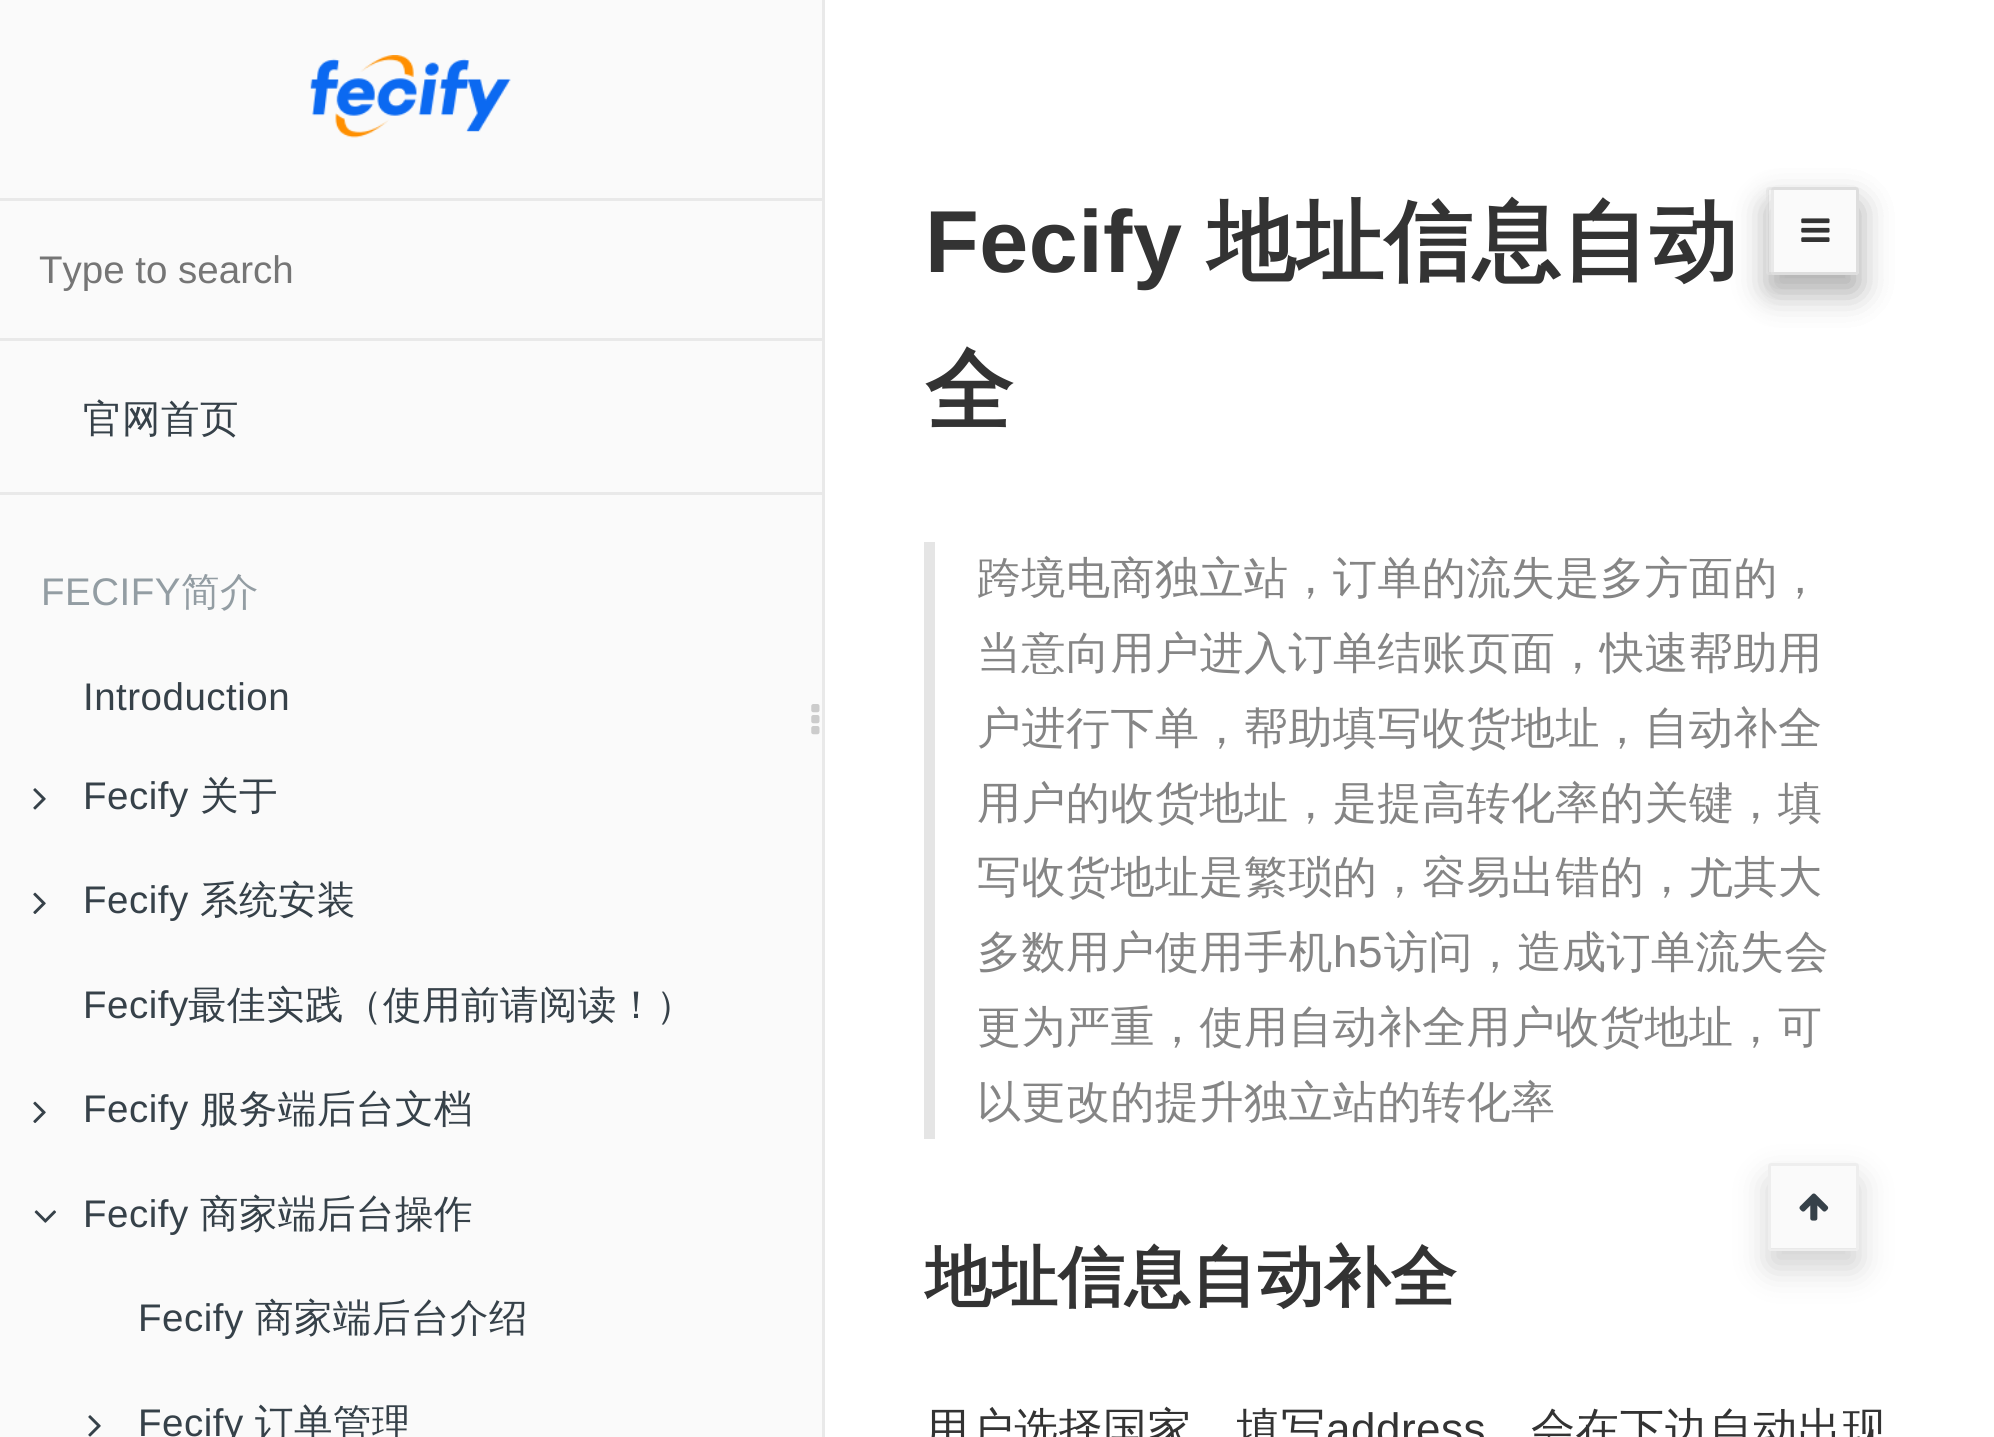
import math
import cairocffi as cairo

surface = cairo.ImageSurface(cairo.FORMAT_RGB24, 1994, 1437)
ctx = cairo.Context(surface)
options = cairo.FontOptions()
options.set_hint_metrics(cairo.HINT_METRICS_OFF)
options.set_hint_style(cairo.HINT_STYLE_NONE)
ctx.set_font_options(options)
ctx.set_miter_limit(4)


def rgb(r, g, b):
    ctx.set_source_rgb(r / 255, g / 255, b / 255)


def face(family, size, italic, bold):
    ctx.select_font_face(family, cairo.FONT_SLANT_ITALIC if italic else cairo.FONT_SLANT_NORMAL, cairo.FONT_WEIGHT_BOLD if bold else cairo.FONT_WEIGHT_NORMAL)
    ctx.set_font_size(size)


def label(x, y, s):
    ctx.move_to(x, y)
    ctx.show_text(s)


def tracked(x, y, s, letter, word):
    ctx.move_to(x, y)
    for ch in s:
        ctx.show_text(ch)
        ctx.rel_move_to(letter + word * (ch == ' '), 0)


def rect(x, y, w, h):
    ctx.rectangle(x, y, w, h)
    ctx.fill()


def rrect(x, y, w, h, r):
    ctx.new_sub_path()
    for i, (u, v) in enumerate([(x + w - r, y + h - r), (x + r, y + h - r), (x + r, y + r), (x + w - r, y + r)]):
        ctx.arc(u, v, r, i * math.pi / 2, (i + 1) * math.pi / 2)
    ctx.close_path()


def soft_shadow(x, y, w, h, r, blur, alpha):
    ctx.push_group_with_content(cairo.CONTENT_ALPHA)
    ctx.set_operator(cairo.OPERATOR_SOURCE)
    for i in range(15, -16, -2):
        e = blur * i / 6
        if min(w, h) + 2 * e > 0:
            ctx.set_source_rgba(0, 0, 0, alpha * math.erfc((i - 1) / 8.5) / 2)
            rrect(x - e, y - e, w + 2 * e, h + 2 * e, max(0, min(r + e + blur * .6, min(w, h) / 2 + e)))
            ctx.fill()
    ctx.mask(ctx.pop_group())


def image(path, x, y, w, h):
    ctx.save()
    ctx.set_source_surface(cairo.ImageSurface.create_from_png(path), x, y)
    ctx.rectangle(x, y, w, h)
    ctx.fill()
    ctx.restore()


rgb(255, 255, 255)
ctx.paint()
rgb(250, 250, 250)
rect(0, 0, 822, 1437)
rgb(233, 233, 233)
rect(822, 0, 3, 1437)
image('image0.png', 310, 55, 201, 83)
rect(0, 198, 822, 3)
rect(0, 338, 822, 3)
face('Liberation Sans', 38.5, 0, 0)
rgb(117, 117, 117)
label(39, 283, 'Type to search')
face('WenQuanYi Zen Hei Medium', 38.5, 0, 0)
rgb(54, 65, 73)
tracked(83, 432, '官网首页', 0.5, 0)
rgb(233, 233, 233)
rect(0, 492, 822, 3)
face('Liberation Sans', 38.5, 0, 0)
rgb(147, 157, 163)
tracked(41, 605, 'FECIFY', 0.5, 0)
face('WenQuanYi Zen Hei Medium', 38.5, 0, 0)
tracked(181, 605, '简介', 0.5, 0)
face('Liberation Sans', 38.5, 0, 0)
rgb(54, 65, 73)
tracked(83, 710, 'Introduction', 0.5, 0)
image('image1.png', 33, 788, 13, 22)
tracked(83, 809, 'Fecify', 0.5, 0)
face('WenQuanYi Zen Hei Medium', 38.5, 0, 0)
tracked(200, 809, '关于', 0.5, 0)
image('image2.png', 33, 892, 13, 22)
face('Liberation Sans', 38.5, 0, 0)
tracked(83, 913, 'Fecify', 0.5, 0)
face('WenQuanYi Zen Hei Medium', 38.5, 0, 0)
tracked(200, 913, '系统安装', 0.5, 0)
face('Liberation Sans', 38.5, 0, 0)
tracked(83, 1018, 'Fecify', 0.5, 0)
face('WenQuanYi Zen Hei Medium', 38.5, 0, 0)
tracked(188, 1018, '最佳实践（使用前请阅读！）', 0.5, 0)
image('image2.png', 33, 1101, 13, 22)
face('Liberation Sans', 38.5, 0, 0)
tracked(83, 1122, 'Fecify', 0.5, 0)
face('WenQuanYi Zen Hei Medium', 38.5, 0, 0)
tracked(200, 1122, '服务端后台文档', 0.5, 0)
image('image3.png', 34, 1210, 22, 13)
face('Liberation Sans', 38.5, 0, 0)
tracked(83, 1227, 'Fecify', 0.5, 0)
face('WenQuanYi Zen Hei Medium', 38.5, 0, 0)
tracked(200, 1227, '商家端后台操作', 0.5, 0)
face('Liberation Sans', 38.5, 0, 0)
tracked(138, 1331, 'Fecify', 0.5, 0)
face('WenQuanYi Zen Hei Medium', 38.5, 0, 0)
tracked(255, 1331, '商家端后台介绍', 0.5, 0)
image('image1.png', 88, 1415, 13, 22)
face('Liberation Sans', 38.5, 0, 0)
tracked(138, 1436, 'Fecify', 0.5, 0)
face('WenQuanYi Zen Hei Medium', 38.5, 0, 0)
tracked(255, 1436, '订单管理', 0.5, 0)
image('image4.png', 811, 704, 9, 31)
ctx.save()
ctx.set_fill_rule(cairo.FILL_RULE_EVEN_ODD)
ctx.new_path()
ctx.move_to(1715, 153)
ctx.line_to(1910, 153)
ctx.line_to(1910, 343)
ctx.line_to(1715, 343)
ctx.close_path()
ctx.move_to(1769, 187)
ctx.line_to(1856, 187)
ctx.curve_to(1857.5, 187, 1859, 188.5, 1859, 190)
ctx.line_to(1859, 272)
ctx.curve_to(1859, 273.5, 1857.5, 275, 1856, 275)
ctx.line_to(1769, 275)
ctx.curve_to(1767.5, 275, 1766, 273.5, 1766, 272)
ctx.line_to(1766, 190)
ctx.curve_to(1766, 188.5, 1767.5, 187, 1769, 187)
ctx.close_path()
ctx.clip()
rgb(0, 0, 0)
soft_shadow(1766, 204, 93, 88, 3, 16.5, 0.18)
ctx.restore()
rgb(250, 250, 250)
rect(1768, 190, 6, 82)
rrect(1767.5, 188.5, 90, 85, 1.5)
ctx.set_source_rgba(0, 0, 0, 0.07)
ctx.set_line_width(3)
ctx.stroke()
face('Liberation Sans', 88, 0, 1)
rgb(51, 51, 51)
tracked(925, 272, 'Fecify', 0.5, 0)
face('WenQuanYi Zen Hei', 88, 0, 1)
tracked(1207, 272, '地址信息自动', 0.5, 0)
tracked(925, 421, '全', 0.5, 0)
ctx.save()
ctx.set_fill_rule(cairo.FILL_RULE_EVEN_ODD)
ctx.new_path()
ctx.move_to(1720, 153)
ctx.line_to(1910, 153)
ctx.line_to(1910, 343)
ctx.line_to(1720, 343)
ctx.close_path()
ctx.move_to(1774, 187)
ctx.line_to(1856, 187)
ctx.curve_to(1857.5, 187, 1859, 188.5, 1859, 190)
ctx.line_to(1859, 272)
ctx.curve_to(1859, 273.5, 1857.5, 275, 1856, 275)
ctx.line_to(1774, 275)
ctx.curve_to(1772.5, 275, 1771, 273.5, 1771, 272)
ctx.line_to(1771, 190)
ctx.curve_to(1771, 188.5, 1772.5, 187, 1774, 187)
ctx.close_path()
ctx.clip()
rgb(0, 0, 0)
soft_shadow(1771, 204, 88, 88, 3, 16.5, 0.18)
ctx.restore()
rgb(250, 250, 250)
rect(1774, 190, 82, 82)
rrect(1772.5, 188.5, 85, 85, 1.5)
ctx.set_source_rgba(0, 0, 0, 0.07)
ctx.stroke()
image('image5.png', 1801, 218, 29, 24)
rgb(229, 229, 229)
rect(924, 542, 11, 597)
face('WenQuanYi Zen Hei Medium', 44, 0, 0)
rgb(133, 133, 133)
tracked(977, 593, '跨境电商独立站，订单的流失是多方面的，', 0.5, 0)
tracked(977, 668, '当意向用户进入订单结账页面，快速帮助用', 0.5, 0)
tracked(977, 743, '户进行下单，帮助填写收货地址，自动补全', 0.5, 0)
tracked(977, 818, '用户的收货地址，是提高转化率的关键，填', 0.5, 0)
tracked(977, 892, '写收货地址是繁琐的，容易出错的，尤其大', 0.5, 0)
tracked(977, 967, '多数用户使用手机', 0.5, 0)
face('Liberation Sans', 44, 0, 0)
tracked(1333, 967, 'h5', 0.5, 0)
face('WenQuanYi Zen Hei Medium', 44, 0, 0)
tracked(1384, 967, '访问，造成订单流失会', 0.5, 0)
tracked(977, 1042, '更为严重，使用自动补全用户收货地址，可', 0.5, 0)
tracked(977, 1117, '以更改的提升独立站的转化率', 0.5, 0)
face('WenQuanYi Zen Hei', 66, 0, 1)
rgb(51, 51, 51)
tracked(925, 1300, '地址信息自动补全', 0.5, 0)
ctx.save()
ctx.set_fill_rule(cairo.FILL_RULE_EVEN_ODD)
ctx.new_path()
ctx.move_to(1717, 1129)
ctx.line_to(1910, 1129)
ctx.line_to(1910, 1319)
ctx.line_to(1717, 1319)
ctx.close_path()
ctx.move_to(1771, 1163)
ctx.line_to(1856, 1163)
ctx.curve_to(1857.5, 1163, 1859, 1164.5, 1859, 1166)
ctx.line_to(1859, 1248)
ctx.curve_to(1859, 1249.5, 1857.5, 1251, 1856, 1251)
ctx.line_to(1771, 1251)
ctx.curve_to(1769.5, 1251, 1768, 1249.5, 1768, 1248)
ctx.line_to(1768, 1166)
ctx.curve_to(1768, 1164.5, 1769.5, 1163, 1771, 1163)
ctx.close_path()
ctx.clip()
rgb(0, 0, 0)
soft_shadow(1768, 1180, 91, 88, 3, 16.5, 0.18)
ctx.restore()
rgb(250, 250, 250)
rect(1771, 1166, 85, 83)
rrect(1769.5, 1164.5, 88, 85, 1.5)
ctx.set_source_rgba(0, 0, 0, 0.07)
ctx.stroke()
image('image6.png', 1799, 1193, 30, 28)
face('WenQuanYi Zen Hei Medium', 44, 0, 0)
rgb(51, 51, 51)
tracked(925, 1444, '用户选择国家，填写', 0.5, 0)
face('Liberation Sans', 44, 0, 0)
tracked(1326, 1444, 'address', 0.5, 0)
face('WenQuanYi Zen Hei Medium', 44, 0, 0)
tracked(1531, 1444, '会在下边自动出现', 0.5, 0)
surface.write_to_png('render.png')
